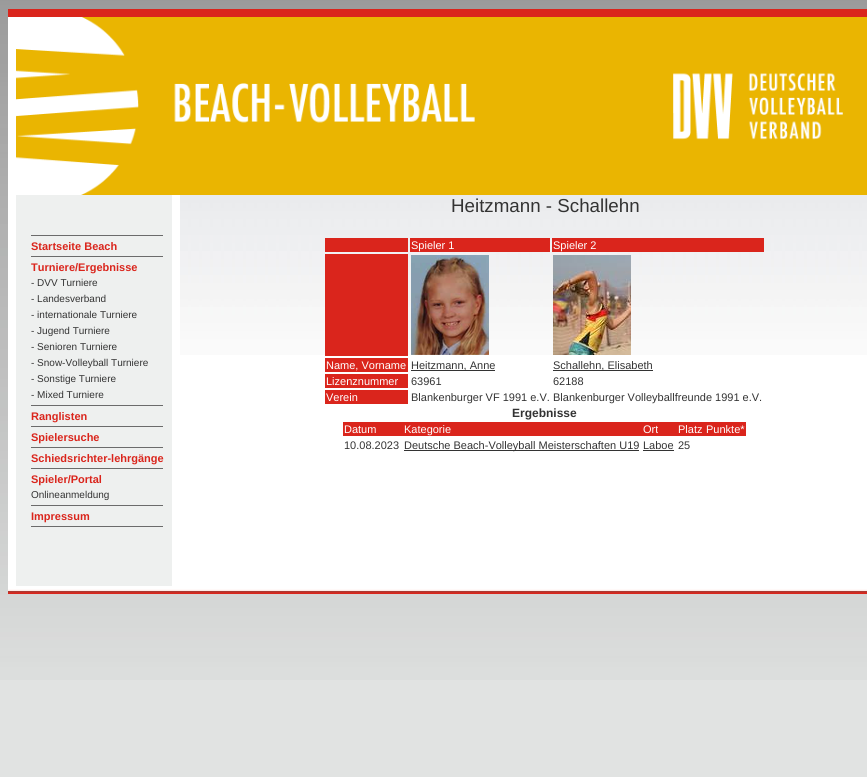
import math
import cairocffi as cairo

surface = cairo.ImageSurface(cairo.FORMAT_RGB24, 867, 777)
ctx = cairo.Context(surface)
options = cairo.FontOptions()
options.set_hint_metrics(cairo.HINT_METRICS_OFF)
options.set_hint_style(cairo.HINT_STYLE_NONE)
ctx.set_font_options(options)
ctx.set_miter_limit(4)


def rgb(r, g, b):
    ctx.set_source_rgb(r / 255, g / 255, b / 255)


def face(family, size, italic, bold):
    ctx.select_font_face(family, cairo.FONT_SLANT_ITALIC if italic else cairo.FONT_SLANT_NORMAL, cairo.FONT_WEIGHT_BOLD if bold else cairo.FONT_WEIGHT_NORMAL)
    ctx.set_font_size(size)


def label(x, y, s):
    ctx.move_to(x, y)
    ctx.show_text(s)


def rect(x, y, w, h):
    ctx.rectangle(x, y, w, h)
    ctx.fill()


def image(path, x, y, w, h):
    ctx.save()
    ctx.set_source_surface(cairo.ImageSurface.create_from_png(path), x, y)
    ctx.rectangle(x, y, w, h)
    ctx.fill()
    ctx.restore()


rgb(225, 227, 226)
ctx.paint()
image('image0.png', 0, 0, 867, 680)
rgb(218, 37, 28)
rect(8, 9, 859, 8)
rgb(255, 255, 255)
rect(8, 17, 8, 569)
image('image1.png', 16, 17, 851, 178)
image('image2.png', 16, 195, 164, 391)
rgb(107, 107, 107)
rect(31, 235, 132, 1)
face('Liberation Sans', 11, 0, 1)
rgb(218, 37, 28)
label(31, 250, 'Startseite Beach')
rgb(107, 107, 107)
rect(31, 256, 132, 1)
rgb(218, 37, 28)
label(31, 271, 'Turniere/Ergebnisse')
face('Liberation Sans', 10, 0, 0)
rgb(51, 51, 51)
label(31, 286, '- DVV Turniere')
label(31, 302, '- Landesverband')
label(31, 318, '- internationale Turniere')
label(31, 334, '- Jugend Turniere')
label(31, 350, '- Senioren Turniere')
label(31, 366, '- Snow-Volleyball Turniere')
label(31, 382, '- Sonstige Turniere')
label(31, 398, '- Mixed Turniere')
rgb(107, 107, 107)
rect(31, 405, 132, 1)
face('Liberation Sans', 11, 0, 1)
rgb(218, 37, 28)
label(31, 420, 'Ranglisten')
rgb(107, 107, 107)
rect(31, 426, 132, 1)
rgb(218, 37, 28)
label(31, 441, 'Spielersuche')
rgb(107, 107, 107)
rect(31, 447, 132, 1)
rgb(218, 37, 28)
label(31, 462, 'Schiedsrichter-lehrgänge')
rgb(107, 107, 107)
rect(31, 468, 132, 1)
rgb(218, 37, 28)
label(31, 483, 'Spieler/Portal')
face('Liberation Sans', 10, 0, 0)
rgb(51, 51, 51)
label(31, 498, 'Onlineanmeldung')
rgb(107, 107, 107)
rect(31, 505, 132, 1)
face('Liberation Sans', 11, 0, 1)
rgb(218, 37, 28)
label(31, 520, 'Impressum')
rgb(107, 107, 107)
rect(31, 526, 132, 1)
rgb(255, 255, 255)
rect(180, 355, 687, 231)
image('image3.png', 180, 195, 687, 160)
face('Liberation Sans', 18.75, 0, 0)
rgb(51, 51, 51)
label(451, 212, 'Heitzmann - Schallehn')
rgb(218, 37, 28)
rect(325, 238, 83, 14)
rect(410, 238, 140, 14)
face('Liberation Sans', 11, 0, 0)
rgb(255, 255, 255)
label(411, 249, 'Spieler 1')
rgb(218, 37, 28)
rect(552, 238, 212, 14)
rgb(255, 255, 255)
label(553, 249, 'Spieler 2')
rgb(218, 37, 28)
rect(325, 254, 83, 102)
image('image4.png', 411, 255, 78, 100)
image('image5.png', 553, 255, 78, 100)
rect(325, 358, 83, 14)
rgb(255, 255, 255)
label(326, 369, 'Name, Vorname')
rgb(51, 51, 51)
rect(411, 370, 84, 1)
label(411, 369, 'Heitzmann, Anne')
rect(553, 370, 100, 1)
label(553, 369, 'Schallehn, Elisabeth')
rgb(218, 37, 28)
rect(325, 374, 83, 14)
rgb(255, 255, 255)
label(326, 385, 'Lizenznummer')
rgb(51, 51, 51)
label(411, 385, '63961')
label(553, 385, '62188')
rgb(218, 37, 28)
rect(325, 390, 83, 14)
rgb(255, 255, 255)
label(326, 401, 'Verein')
rgb(51, 51, 51)
label(411, 401, 'Blankenburger VF 1991 e.V.')
label(553, 401, 'Blankenburger Volleyballfreunde 1991 e.V.')
face('Liberation Sans', 12, 0, 1)
label(512, 417, 'Ergebnisse')
rgb(218, 37, 28)
rect(343, 422, 403, 14)
face('Liberation Sans', 11, 0, 0)
rgb(255, 255, 255)
label(344, 433, 'Datum')
label(404, 433, 'Kategorie')
label(643, 433, 'Ort')
label(678, 433, 'Platz')
label(706, 433, 'Punkte*')
rgb(51, 51, 51)
label(344, 449, '10.08.2023')
rect(404, 450, 235, 1)
label(404, 449, 'Deutsche Beach-Volleyball Meisterschaften U19')
label(643, 449, 'Laboe')
rect(643, 450, 31, 1)
label(678, 449, '25')
image('image6.png', 8, 586, 859, 8)
surface.write_to_png('render.png')
